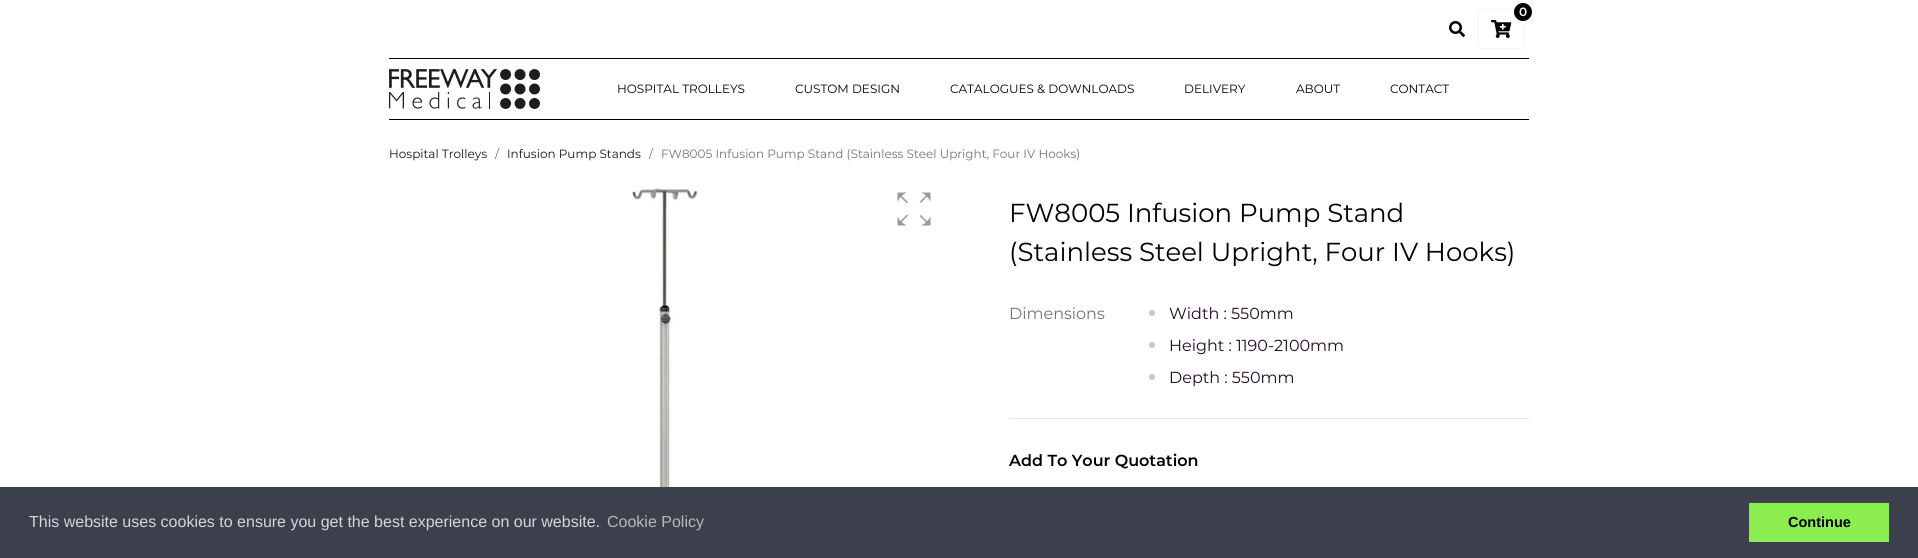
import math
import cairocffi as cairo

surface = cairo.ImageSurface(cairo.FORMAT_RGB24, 1918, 558)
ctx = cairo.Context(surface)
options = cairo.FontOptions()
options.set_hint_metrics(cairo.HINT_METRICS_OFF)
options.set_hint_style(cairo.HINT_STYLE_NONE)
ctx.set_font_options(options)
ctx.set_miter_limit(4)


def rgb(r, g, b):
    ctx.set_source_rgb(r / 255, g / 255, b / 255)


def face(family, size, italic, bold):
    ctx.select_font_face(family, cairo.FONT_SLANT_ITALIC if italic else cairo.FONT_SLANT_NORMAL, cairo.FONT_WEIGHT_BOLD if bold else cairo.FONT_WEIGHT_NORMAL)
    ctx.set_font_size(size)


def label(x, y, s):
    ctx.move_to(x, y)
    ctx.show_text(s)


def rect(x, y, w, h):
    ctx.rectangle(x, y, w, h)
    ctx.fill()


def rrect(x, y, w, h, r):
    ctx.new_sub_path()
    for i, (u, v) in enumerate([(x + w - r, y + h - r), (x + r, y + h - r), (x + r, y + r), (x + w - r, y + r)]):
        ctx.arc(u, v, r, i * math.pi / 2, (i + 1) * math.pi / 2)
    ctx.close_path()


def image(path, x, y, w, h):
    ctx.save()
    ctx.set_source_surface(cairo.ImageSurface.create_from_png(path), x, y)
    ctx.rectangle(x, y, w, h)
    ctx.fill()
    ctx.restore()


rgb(255, 255, 255)
ctx.paint()
rrect(1477.5, 9.5, 47, 39, 4.5)
rgb(242, 244, 245)
ctx.set_line_width(1)
ctx.stroke()
rgb(0, 0, 0)
ctx.arc(1523, 12, 9, 0, 2 * math.pi)
ctx.fill()
face('Montserrat SemiBold', 12, 0, 0)
rgb(255, 255, 255)
label(1519, 16, '0')
image('image0.png', 1491, 20, 21, 18)
image('image1.png', 1449, 21, 16, 16)
rgb(0, 0, 0)
rect(389, 58, 1140, 1)
rect(389, 119, 1140, 1)
image('image2.png', 389, 69, 151, 40)
face('Montserrat', 12, 0, 0)
label(617, 93, 'HOSPITAL TROLLEYS')
label(795, 93, 'CUSTOM DESIGN')
label(950, 93, 'CATALOGUES & DOWNLOADS')
label(1184, 93, 'DELIVERY')
label(1296, 93, 'ABOUT')
label(1390, 93, 'CONTACT')
rgb(30, 15, 36)
label(389, 158, 'Hospital Trolleys')
rgb(108, 117, 125)
label(495, 158, '/')
rgb(30, 15, 36)
label(507, 158, 'Infusion Pump Stands')
rgb(108, 117, 125)
label(649, 158, '/')
label(661, 158, 'FW8005 Infusion Pump Stand (Stainless Steel Upright, Four IV Hooks)')
image('image3.png', 632, 187, 67, 300)
image('image4.png', 897, 192, 34, 34)
face('Montserrat', 26, 0, 0)
rgb(0, 0, 0)
label(1009, 222, 'FW8005 Infusion Pump Stand')
label(1009, 261, '(Stainless Steel Upright, Four IV Hooks)')
face('Montserrat', 16, 0, 0)
rgb(120, 111, 124)
label(1009, 319, 'Dimensions')
rgb(197, 197, 197)
ctx.new_path()
ctx.arc(1152, 313, 3, 0, 2 * math.pi)
ctx.fill()
rgb(30, 15, 36)
label(1169, 319, 'Width : 550mm')
rgb(197, 197, 197)
ctx.new_path()
ctx.arc(1152, 345, 3, 0, 2 * math.pi)
ctx.fill()
rgb(30, 15, 36)
label(1169, 351, 'Height : 1190-2100mm')
rgb(197, 197, 197)
ctx.new_path()
ctx.arc(1152, 377, 3, 0, 2 * math.pi)
ctx.fill()
rgb(30, 15, 36)
label(1169, 383, 'Depth : 550mm')
rgb(229, 229, 229)
rect(1009, 418, 520, 1)
face('Montserrat SemiBold', 16, 0, 0)
rgb(0, 0, 0)
label(1009, 466, 'Add To Your Quotation')
rgb(60, 64, 77)
rect(0, 487, 1918, 71)
face('Liberation Sans', 16, 0, 0)
rgb(214, 214, 214)
label(29, 527, 'This website uses cookies to ensure you get the best experience on our website.')
rgb(183, 184, 187)
label(607, 527, 'Cookie Policy')
rgb(139, 237, 79)
rect(1749, 503, 140, 39)
face('Liberation Sans', 14.5, 0, 1)
rgb(0, 0, 0)
label(1788, 527, 'Continue')
surface.write_to_png('render.png')
